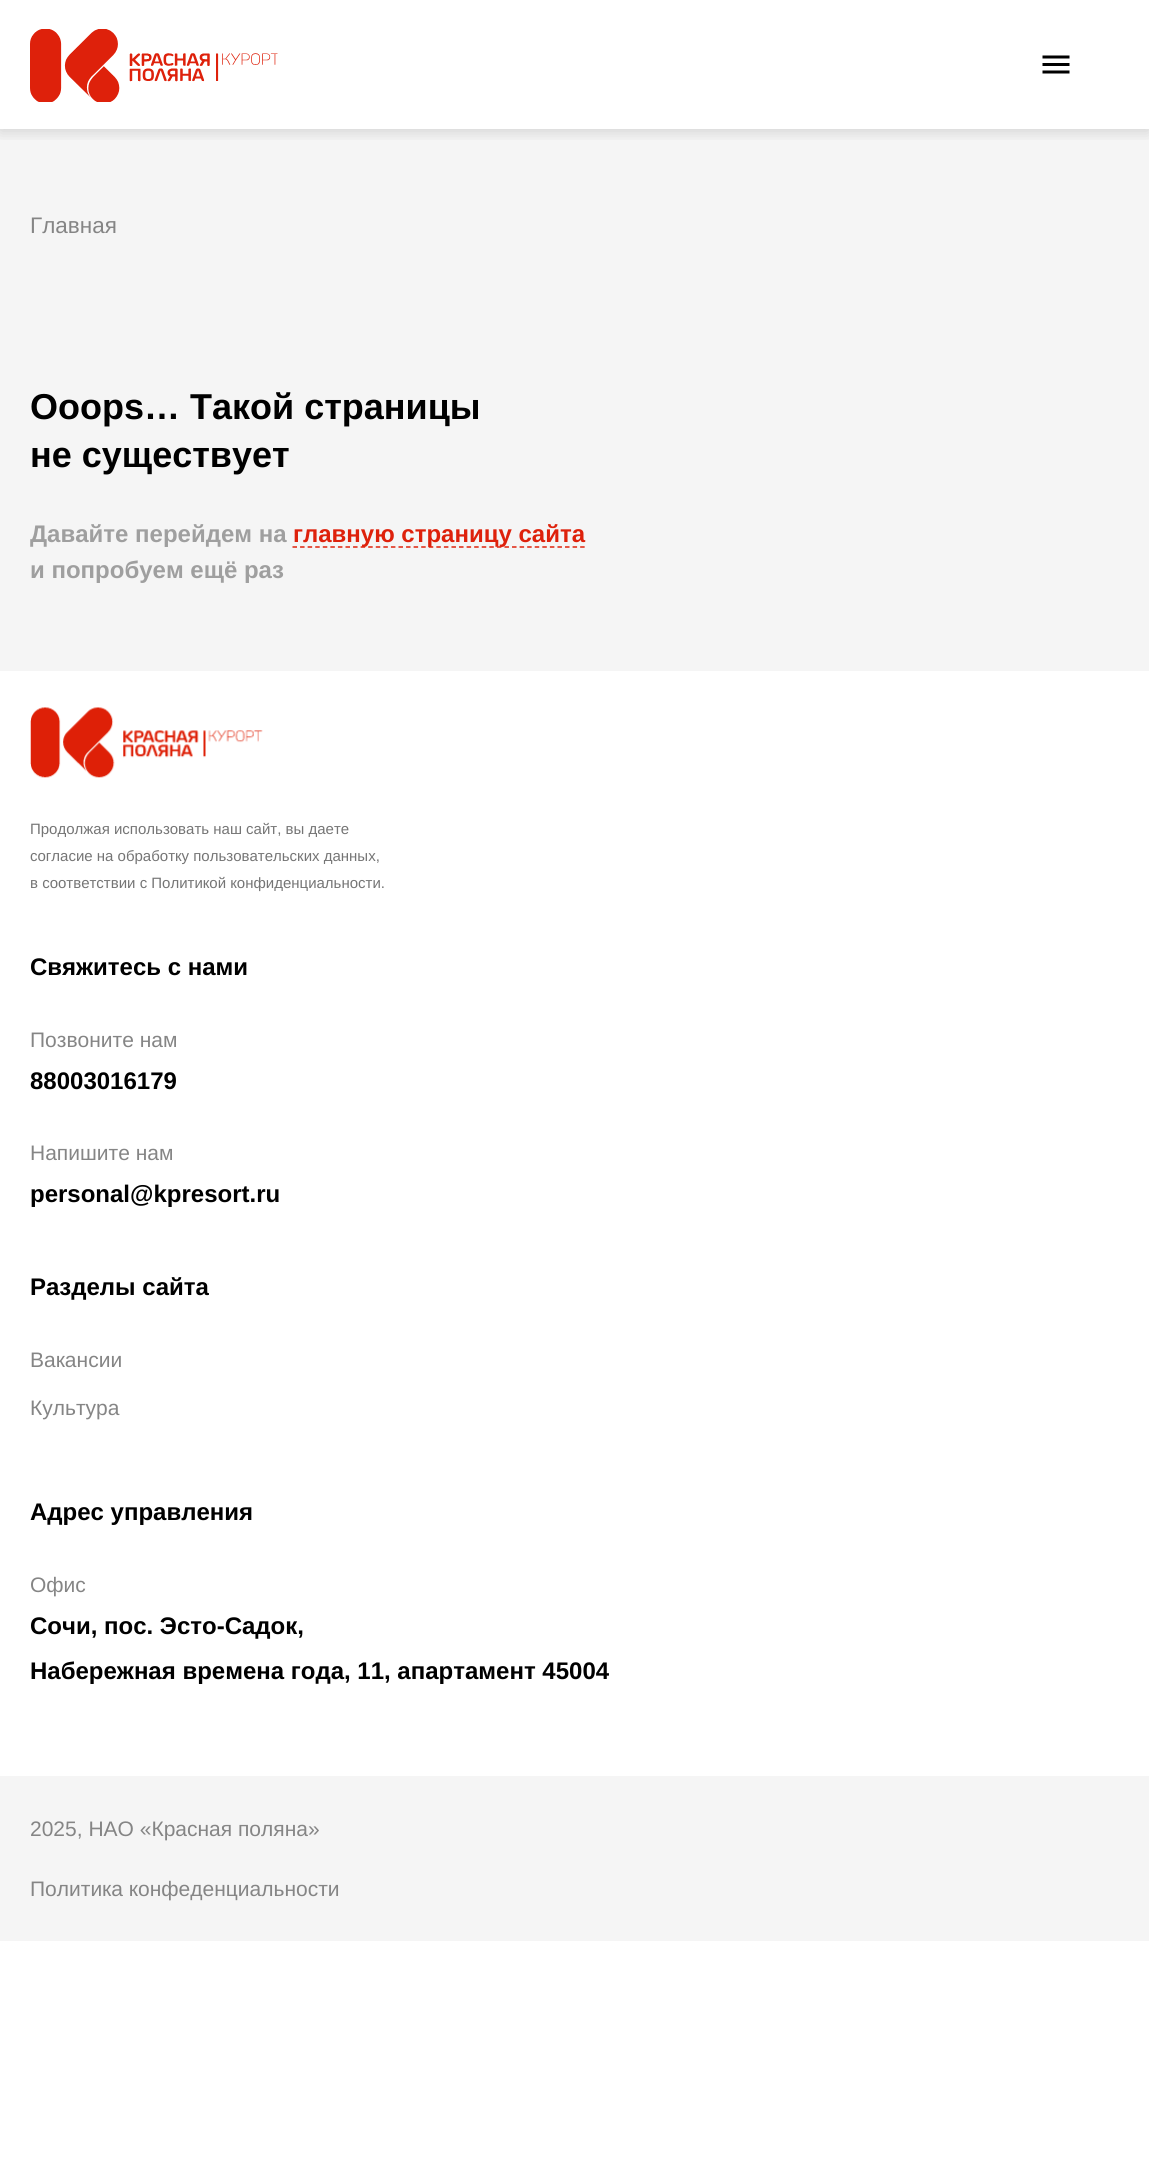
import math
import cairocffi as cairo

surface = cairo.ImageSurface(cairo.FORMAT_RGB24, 1149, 2178)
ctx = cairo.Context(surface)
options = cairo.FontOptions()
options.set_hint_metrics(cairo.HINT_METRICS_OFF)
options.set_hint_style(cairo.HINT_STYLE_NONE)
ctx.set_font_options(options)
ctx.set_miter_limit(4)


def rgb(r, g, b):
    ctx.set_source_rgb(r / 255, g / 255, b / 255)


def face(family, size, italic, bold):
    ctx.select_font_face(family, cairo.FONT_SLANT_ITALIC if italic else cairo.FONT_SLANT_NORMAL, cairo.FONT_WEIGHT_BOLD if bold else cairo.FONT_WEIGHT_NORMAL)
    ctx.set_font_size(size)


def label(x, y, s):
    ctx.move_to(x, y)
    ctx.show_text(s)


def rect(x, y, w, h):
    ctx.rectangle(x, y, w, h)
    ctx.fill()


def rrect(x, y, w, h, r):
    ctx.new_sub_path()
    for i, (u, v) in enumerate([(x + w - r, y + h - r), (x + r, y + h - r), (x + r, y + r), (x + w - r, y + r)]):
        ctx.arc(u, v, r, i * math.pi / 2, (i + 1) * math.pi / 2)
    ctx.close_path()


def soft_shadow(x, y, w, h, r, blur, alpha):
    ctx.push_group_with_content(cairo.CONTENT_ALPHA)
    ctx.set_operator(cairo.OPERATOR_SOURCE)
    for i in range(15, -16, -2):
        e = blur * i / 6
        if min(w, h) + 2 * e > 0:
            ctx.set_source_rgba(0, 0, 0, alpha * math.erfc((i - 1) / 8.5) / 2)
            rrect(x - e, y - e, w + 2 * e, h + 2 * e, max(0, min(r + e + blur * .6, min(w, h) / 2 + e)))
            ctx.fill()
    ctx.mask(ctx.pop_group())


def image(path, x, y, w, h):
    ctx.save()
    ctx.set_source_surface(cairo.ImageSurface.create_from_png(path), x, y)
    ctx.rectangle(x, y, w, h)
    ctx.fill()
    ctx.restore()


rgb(255, 255, 255)
ctx.paint()
rgb(245, 245, 245)
rect(0, 129, 1149, 542)
ctx.save()
ctx.rectangle(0, 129, 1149, 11)
ctx.clip()
rgb(0, 0, 0)
soft_shadow(0, 2, 1149, 129, 0, 7.5, 0.16)
ctx.restore()
image('image0.png', 30, 29, 248, 73)
image('image1.png', 1042, 55, 28, 19)
face('Liberation Sans', 22.5, 0, 0)
rgb(133, 133, 133)
label(30, 233, 'Главная')
face('Liberation Sans', 36, 0, 1)
rgb(0, 0, 0)
label(30, 419, 'Ooops… Такой страницы')
label(30, 467, 'не существует')
face('Liberation Sans', 24, 0, 1)
rgb(159, 159, 159)
label(30, 542, 'Давайте перейдем на')
ctx.new_path()
ctx.move_to(292.5, 547)
ctx.line_to(585, 547)
rgb(222, 33, 11)
ctx.set_line_width(1.5)
ctx.set_dash([4.5, 3.07])
ctx.stroke()
label(293, 542, 'главную страницу сайта')
rgb(159, 159, 159)
label(30, 578, 'и попробуем ещё раз')
image('image2.png', 30, 707, 233, 71)
face('Liberation Sans', 15, 0, 0)
rgb(117, 117, 117)
label(30, 834, 'Продолжая использовать наш сайт, вы даете')
label(30, 861, 'согласие на обработку пользовательских данных,')
label(30, 888, 'в соответствии с Политикой конфиденциальности.')
face('Liberation Sans', 24, 0, 1)
rgb(0, 0, 0)
label(30, 975, 'Свяжитесь с нами')
face('Liberation Sans', 21, 0, 0)
rgb(133, 133, 133)
label(30, 1047, 'Позвоните нам')
face('Liberation Sans', 24, 0, 1)
rgb(0, 0, 0)
label(30, 1089, '88003016179')
face('Liberation Sans', 21, 0, 0)
rgb(133, 133, 133)
label(30, 1160, 'Напишите нам')
face('Liberation Sans', 24, 0, 1)
rgb(0, 0, 0)
label(30, 1202, 'personal@kpresort.ru')
label(30, 1295, 'Разделы сайта')
face('Liberation Sans', 21, 0, 0)
rgb(133, 133, 133)
label(30, 1367, 'Вакансии')
label(30, 1415, 'Культура')
face('Liberation Sans', 24, 0, 1)
rgb(0, 0, 0)
label(30, 1520, 'Адрес управления')
face('Liberation Sans', 21, 0, 0)
rgb(133, 133, 133)
label(30, 1592, 'Офис')
face('Liberation Sans', 24, 0, 1)
rgb(0, 0, 0)
label(30, 1634, 'Сочи, пос. Эсто-Садок,')
label(30, 1679, 'Набережная времена года, 11, апартамент 45004')
rgb(245, 245, 245)
rect(0, 1776, 1149, 165)
face('Liberation Sans', 21, 0, 0)
rgb(133, 133, 133)
label(30, 1836, '2025, НАО «Красная поляна»')
label(30, 1896, 'Политика конфеденциальности')
surface.write_to_png('render.png')
